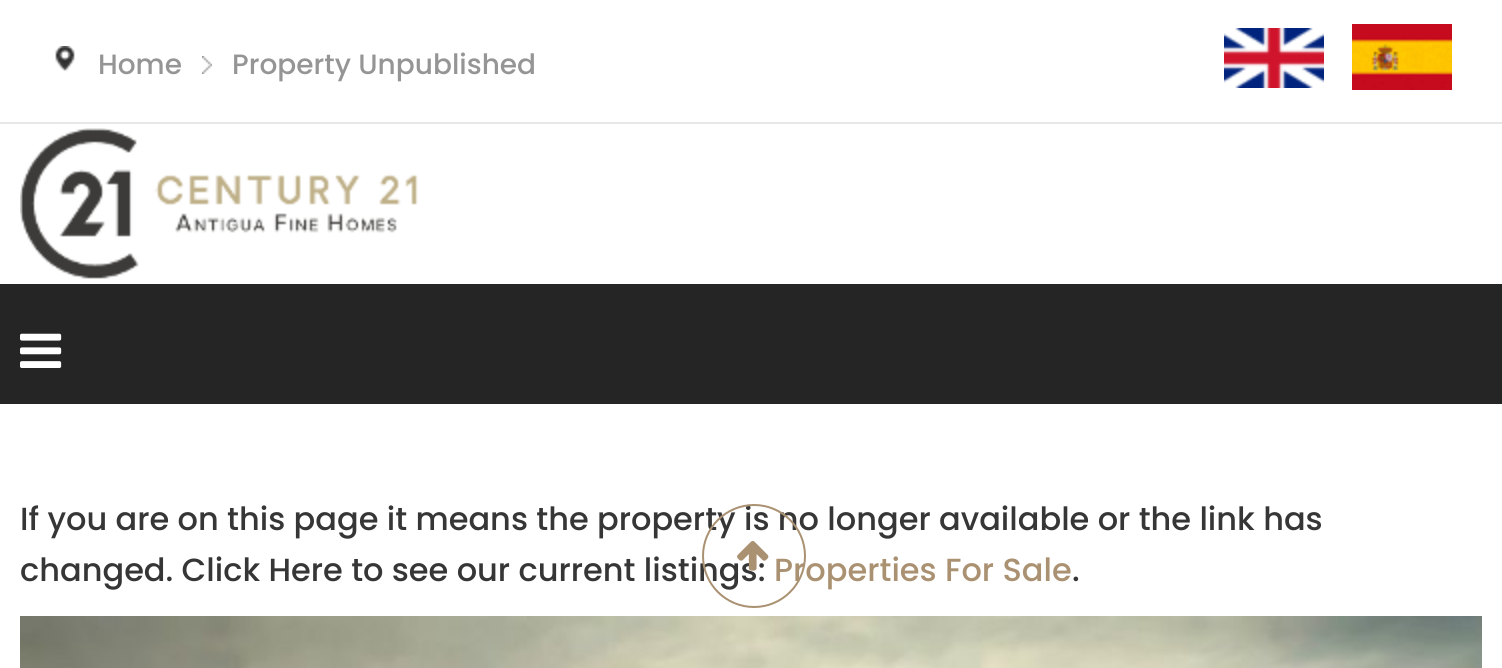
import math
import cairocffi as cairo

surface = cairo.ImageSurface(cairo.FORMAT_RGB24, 1502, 668)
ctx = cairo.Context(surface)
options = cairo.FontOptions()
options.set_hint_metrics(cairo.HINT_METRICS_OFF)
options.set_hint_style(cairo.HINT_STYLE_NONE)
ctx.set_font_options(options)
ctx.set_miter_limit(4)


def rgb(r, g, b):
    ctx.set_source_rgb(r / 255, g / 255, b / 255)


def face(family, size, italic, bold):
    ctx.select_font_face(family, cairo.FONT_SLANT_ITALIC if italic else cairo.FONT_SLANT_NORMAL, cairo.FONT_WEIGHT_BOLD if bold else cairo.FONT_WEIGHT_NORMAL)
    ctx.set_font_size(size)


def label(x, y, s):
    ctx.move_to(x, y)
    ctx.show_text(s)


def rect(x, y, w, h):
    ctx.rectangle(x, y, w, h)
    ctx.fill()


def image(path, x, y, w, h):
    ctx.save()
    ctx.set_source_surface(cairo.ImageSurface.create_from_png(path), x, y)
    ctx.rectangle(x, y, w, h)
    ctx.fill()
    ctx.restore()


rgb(255, 255, 255)
ctx.paint()
rgb(231, 231, 231)
rect(0, 122, 1502, 2)
image('image0.png', 55, 46, 20, 25)
image('image1.png', 202, 56, 10, 18)
face('Poppins Medium', 28, 0, 0)
rgb(149, 149, 149)
label(98, 74, 'Home')
label(232, 74, 'Property Unpublished')
image('image2.png', 1224, 28, 100, 60)
image('image3.png', 1352, 24, 100, 66)
image('image4.png', 20, 128, 398, 151)
rgb(37, 37, 37)
rect(0, 284, 1502, 120)
image('image5.png', 20, 333, 42, 35)
face('Poppins Medium', 32, 0, 0)
rgb(54, 54, 54)
label(20, 530, 'If you are on this page it means the property is no longer available or the link has')
label(20, 581, 'changed. Click Here to see our current listings:')
ctx.new_path()
ctx.arc(754, 556, 51, 0, 2 * math.pi)
rgb(170, 145, 114)
ctx.stroke()
image('image6.png', 737, 541, 32, 30)
label(774, 581, 'Properties For Sale')
rgb(54, 54, 54)
label(1072, 581, '.')
image('image7.png', 20, 616, 1462, 52)
surface.write_to_png('render.png')
